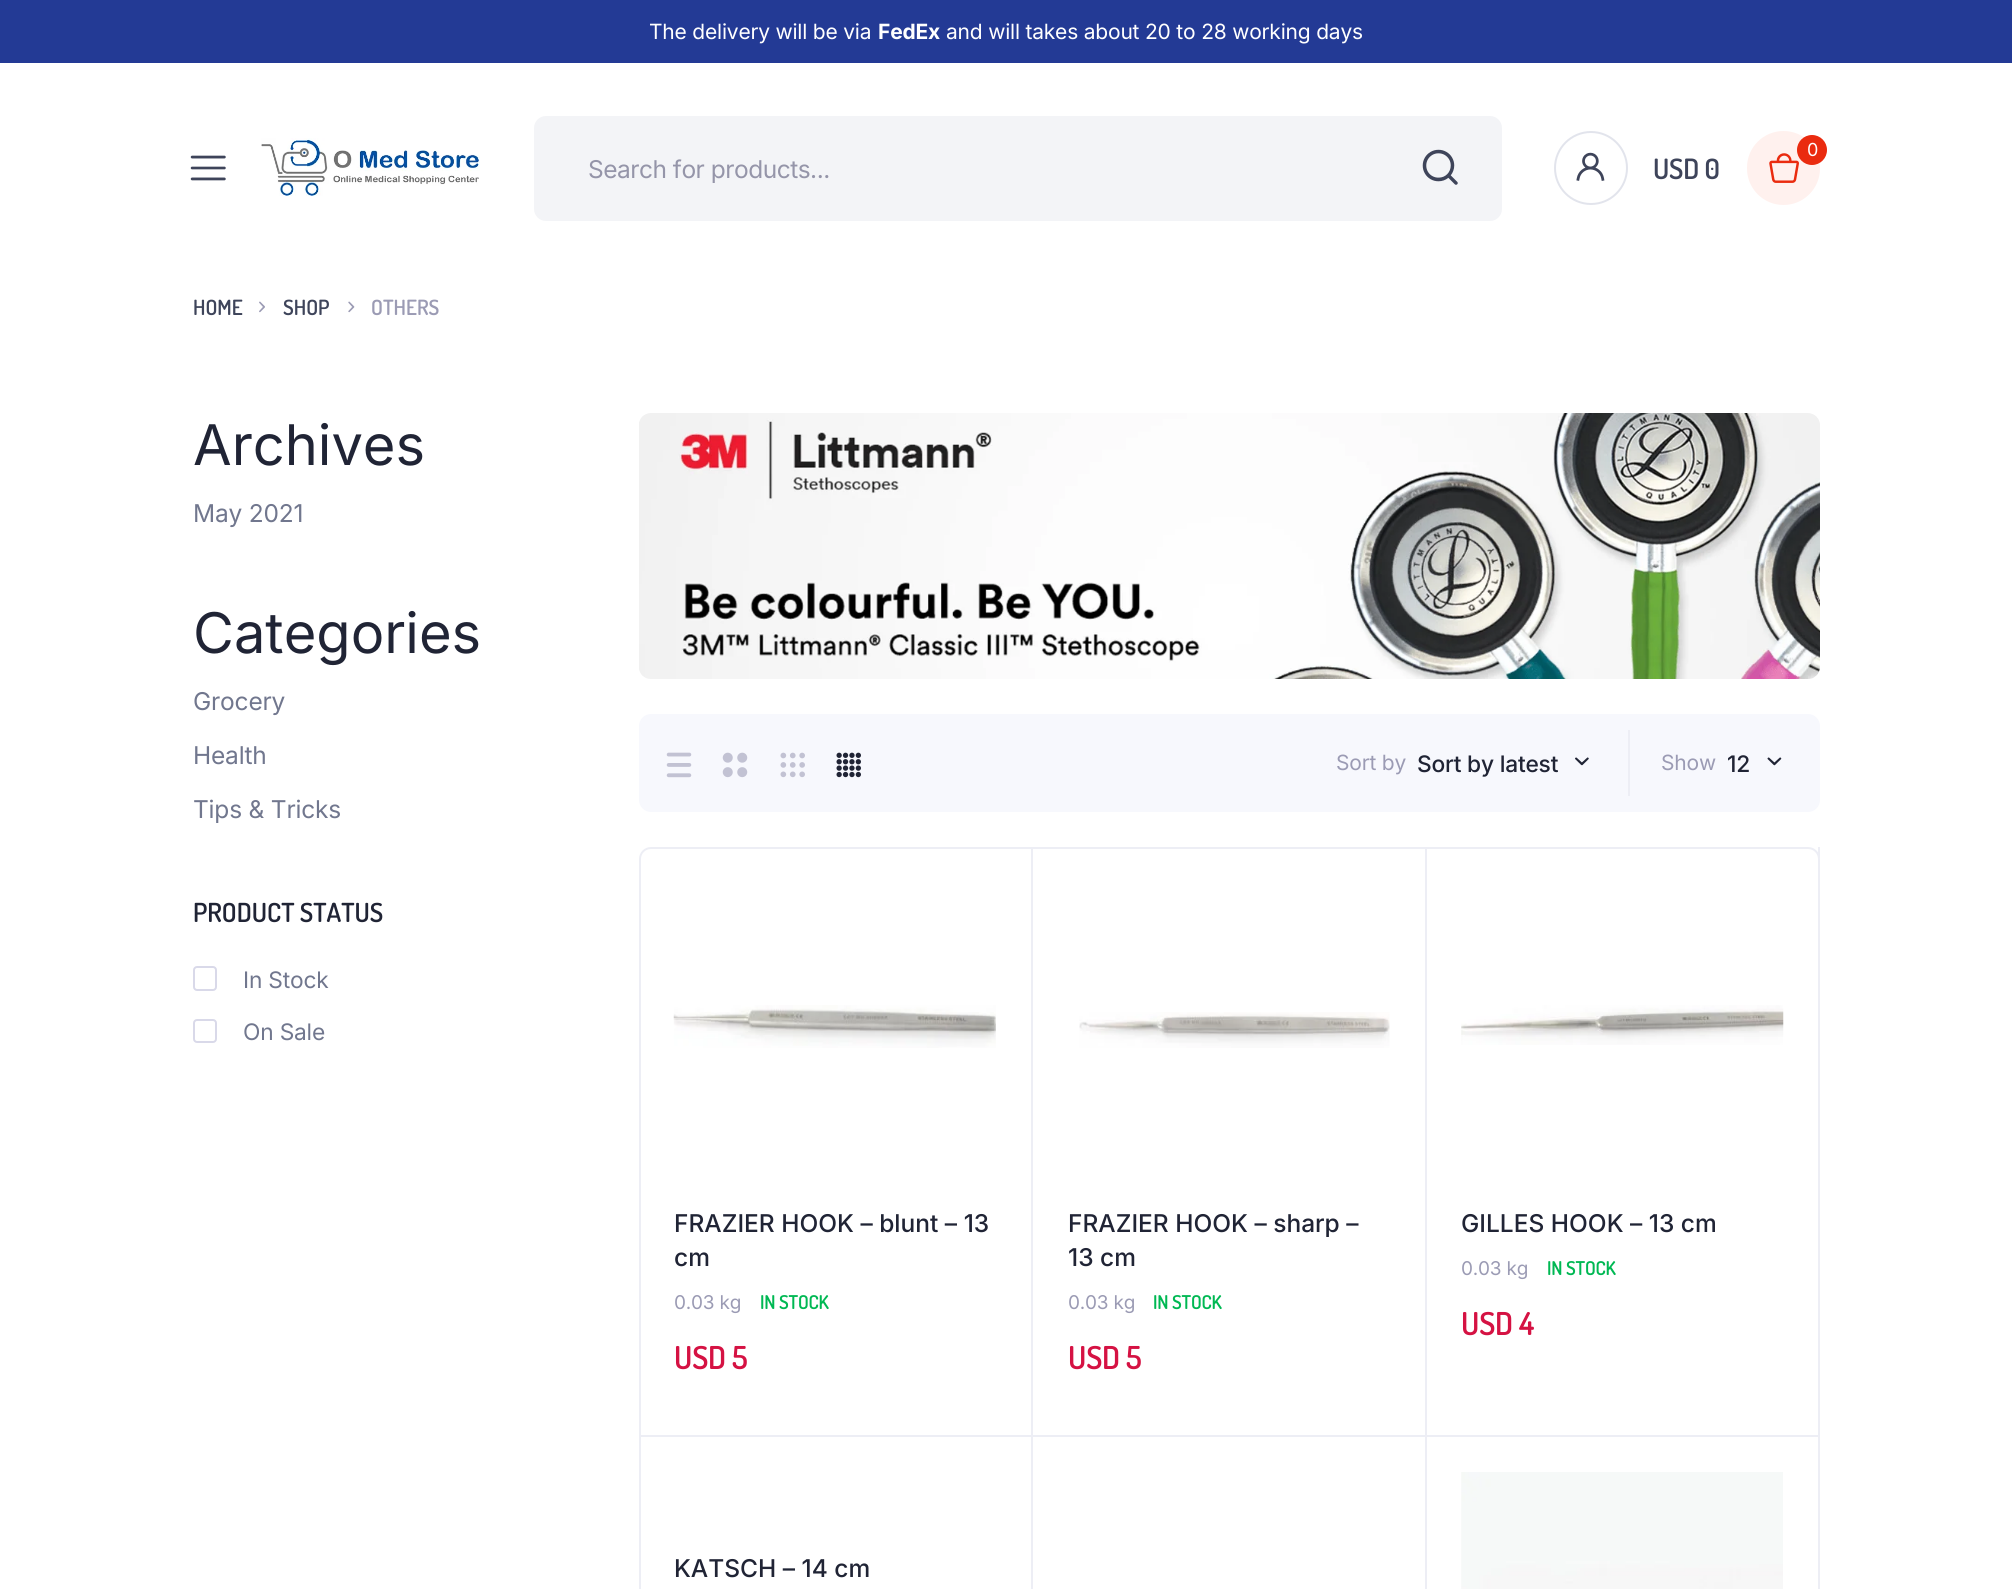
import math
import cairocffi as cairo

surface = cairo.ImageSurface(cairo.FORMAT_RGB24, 2012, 1589)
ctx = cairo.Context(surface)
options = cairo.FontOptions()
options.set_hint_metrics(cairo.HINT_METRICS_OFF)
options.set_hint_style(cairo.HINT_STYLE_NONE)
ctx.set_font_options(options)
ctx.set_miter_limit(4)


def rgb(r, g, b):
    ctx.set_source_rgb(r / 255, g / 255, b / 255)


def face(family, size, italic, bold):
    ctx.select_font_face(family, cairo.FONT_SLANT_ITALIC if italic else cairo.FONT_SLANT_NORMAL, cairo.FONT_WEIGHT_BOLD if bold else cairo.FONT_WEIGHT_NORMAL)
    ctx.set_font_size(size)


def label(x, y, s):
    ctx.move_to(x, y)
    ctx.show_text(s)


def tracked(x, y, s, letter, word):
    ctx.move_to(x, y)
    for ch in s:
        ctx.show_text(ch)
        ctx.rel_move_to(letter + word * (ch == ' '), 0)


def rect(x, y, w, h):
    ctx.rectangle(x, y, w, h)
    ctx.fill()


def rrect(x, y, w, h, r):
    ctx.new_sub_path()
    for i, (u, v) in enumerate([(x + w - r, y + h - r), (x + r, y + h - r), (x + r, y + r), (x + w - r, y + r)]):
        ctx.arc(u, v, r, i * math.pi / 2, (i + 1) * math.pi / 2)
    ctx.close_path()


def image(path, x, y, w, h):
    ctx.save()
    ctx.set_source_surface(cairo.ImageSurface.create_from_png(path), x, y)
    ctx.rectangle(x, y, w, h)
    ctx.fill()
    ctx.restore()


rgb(255, 255, 255)
ctx.paint()
rgb(35, 58, 149)
rect(0, 0, 2012, 63)
face('Inter', 21, 0, 0)
rgb(255, 255, 255)
tracked(649, 39, 'The delivery will be via', -0.2, 0)
face('Inter', 21, 0, 1)
tracked(878, 39, 'FedEx', -0.2, 0)
face('Inter', 21, 0, 0)
tracked(946, 39, 'and will takes about 20 to 28 working days', -0.2, 0)
image('image0.png', 190, 155, 36, 26)
image('image1.png', 261, 138, 219, 58)
rgb(243, 244, 247)
rrect(534, 116, 968, 105, 12)
ctx.fill()
face('Inter', 24.5, 0, 0)
rgb(149, 149, 169)
tracked(588, 178, 'Search for products...', -0.5, 0)
image('image2.png', 1422, 149, 36, 36)
ctx.arc(1591, 168, 36, 0, 2 * math.pi)
rgb(226, 228, 236)
ctx.stroke()
image('image3.png', 1576, 152, 29, 29)
rgb(255, 241, 238)
rrect(1748, 132, 71, 72, 35.5)
ctx.fill_preserve()
ctx.stroke()
image('image4.png', 1769, 153, 30, 30)
rgb(234, 43, 15)
ctx.arc(1812, 150, 15, 0, 2 * math.pi)
ctx.fill()
face('Inter', 18, 0, 0)
rgb(255, 255, 255)
tracked(1807, 156, '0', -0.2, 0)
face('Dosis SemiBold', 28, 0, 0)
rgb(62, 68, 90)
tracked(1653, 179, 'USD 0', -0.2, 0)
face('Dosis SemiBold', 21, 0, 0)
label(193, 315, 'HOME')
image('image5.png', 259, 301, 6, 12)
label(283, 315, 'SHOP')
image('image6.png', 348, 301, 7, 12)
rgb(155, 155, 180)
label(371, 315, 'OTHERS')
face('Inter', 56, 0, 0)
rgb(32, 36, 53)
label(193, 465, 'Archives')
face('Inter', 24.5, 0, 0)
rgb(113, 119, 142)
tracked(193, 522, 'May 2021', -0.2, 0)
face('Inter', 56, 0, 0)
rgb(32, 36, 53)
label(193, 653, 'Categories')
face('Inter', 24.5, 0, 0)
rgb(113, 119, 142)
tracked(193, 710, 'Grocery', -0.2, 0)
tracked(193, 764, 'Health', -0.2, 0)
tracked(193, 818, 'Tips & Tricks', -0.2, 0)
face('Dosis SemiBold', 26.25, 0, 0)
rgb(32, 36, 53)
label(193, 922, 'PRODUCT STATUS')
rrect(194, 967, 22, 23, 3)
rgb(217, 217, 233)
ctx.stroke()
face('Inter', 22.75, 0, 0)
rgb(113, 119, 142)
tracked(243, 988, 'In Stock', -0.2, 0)
rrect(194, 1020, 22, 22, 3)
rgb(217, 217, 233)
ctx.stroke()
rgb(113, 119, 142)
tracked(243, 1040, 'On Sale', -0.2, 0)
image('image7.png', 639, 413, 1181, 266)
rgb(247, 248, 253)
rrect(639, 714, 1181, 98, 12)
ctx.fill()
image('image8.png', 666, 752, 26, 26)
image('image9.png', 722, 752, 26, 26)
image('image10.png', 780, 752, 25, 26)
image('image11.png', 836, 752, 25, 26)
face('Inter', 21, 0, 0)
rgb(155, 155, 180)
tracked(1336, 770, 'Sort by', -0.2, 0)
face('Inter Medium', 22.75, 0, 0)
rgb(32, 36, 53)
tracked(1417, 772, 'Sort by latest', -0.2, 0)
image('image12.png', 1575, 757, 14, 9)
rgb(237, 238, 245)
rect(1628, 730, 2, 66)
face('Inter', 21, 0, 0)
rgb(155, 155, 180)
tracked(1661, 770, 'Show', -0.2, 0)
face('Inter Medium', 22.75, 0, 0)
rgb(32, 36, 53)
tracked(1727, 772, '12', -0.2, 0)
image('image13.png', 1767, 757, 15, 9)
rrect(640, 848, 1179, 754, 11)
rgb(237, 238, 245)
ctx.stroke()
rect(1031, 847, 2, 742)
rect(639, 1435, 394, 2)
image('image14.png', 673, 1005, 323, 43)
face('Inter Medium', 24.5, 0, 0)
rgb(32, 36, 53)
label(674, 1232, 'FRAZIER HOOK – blunt – 13')
label(674, 1266, 'cm')
face('Inter', 19, 0, 0)
rgb(155, 155, 180)
tracked(674, 1309, '0.03 kg', -0.2, 0)
face('Dosis SemiBold', 19, 0, 0)
rgb(0, 184, 83)
tracked(760, 1309, 'IN STOCK', -0.2, 0)
face('Dosis SemiBold', 31.5, 0, 0)
rgb(213, 18, 67)
tracked(674, 1369, 'USD 5', -0.2, 0)
rgb(237, 238, 245)
rect(1425, 847, 2, 742)
rect(1033, 1435, 787, 2)
image('image15.png', 1079, 1012, 311, 36)
face('Inter Medium', 24.5, 0, 0)
rgb(32, 36, 53)
label(1068, 1232, 'FRAZIER HOOK – sharp –')
label(1068, 1266, '13 cm')
face('Inter', 19, 0, 0)
rgb(155, 155, 180)
tracked(1068, 1309, '0.03 kg', -0.2, 0)
face('Dosis SemiBold', 19, 0, 0)
rgb(0, 184, 83)
tracked(1153, 1309, 'IN STOCK', -0.2, 0)
face('Dosis SemiBold', 31.5, 0, 0)
rgb(213, 18, 67)
tracked(1068, 1369, 'USD 5', -0.2, 0)
rgb(237, 238, 245)
rect(1818, 847, 2, 11)
image('image16.png', 1461, 1005, 323, 40)
face('Inter Medium', 24.5, 0, 0)
rgb(32, 36, 53)
label(1461, 1232, 'GILLES HOOK – 13 cm')
face('Inter', 19, 0, 0)
rgb(155, 155, 180)
tracked(1461, 1275, '0.03 kg', -0.2, 0)
face('Dosis SemiBold', 19, 0, 0)
rgb(0, 184, 83)
tracked(1547, 1275, 'IN STOCK', -0.2, 0)
face('Dosis SemiBold', 31.5, 0, 0)
rgb(213, 18, 67)
tracked(1461, 1335, 'USD 4', -0.2, 0)
face('Inter Medium', 24.5, 0, 0)
rgb(32, 36, 53)
label(674, 1577, 'KATSCH – 14 cm')
image('image17.png', 1461, 1472, 322, 117)
surface.write_to_png('render.png')
